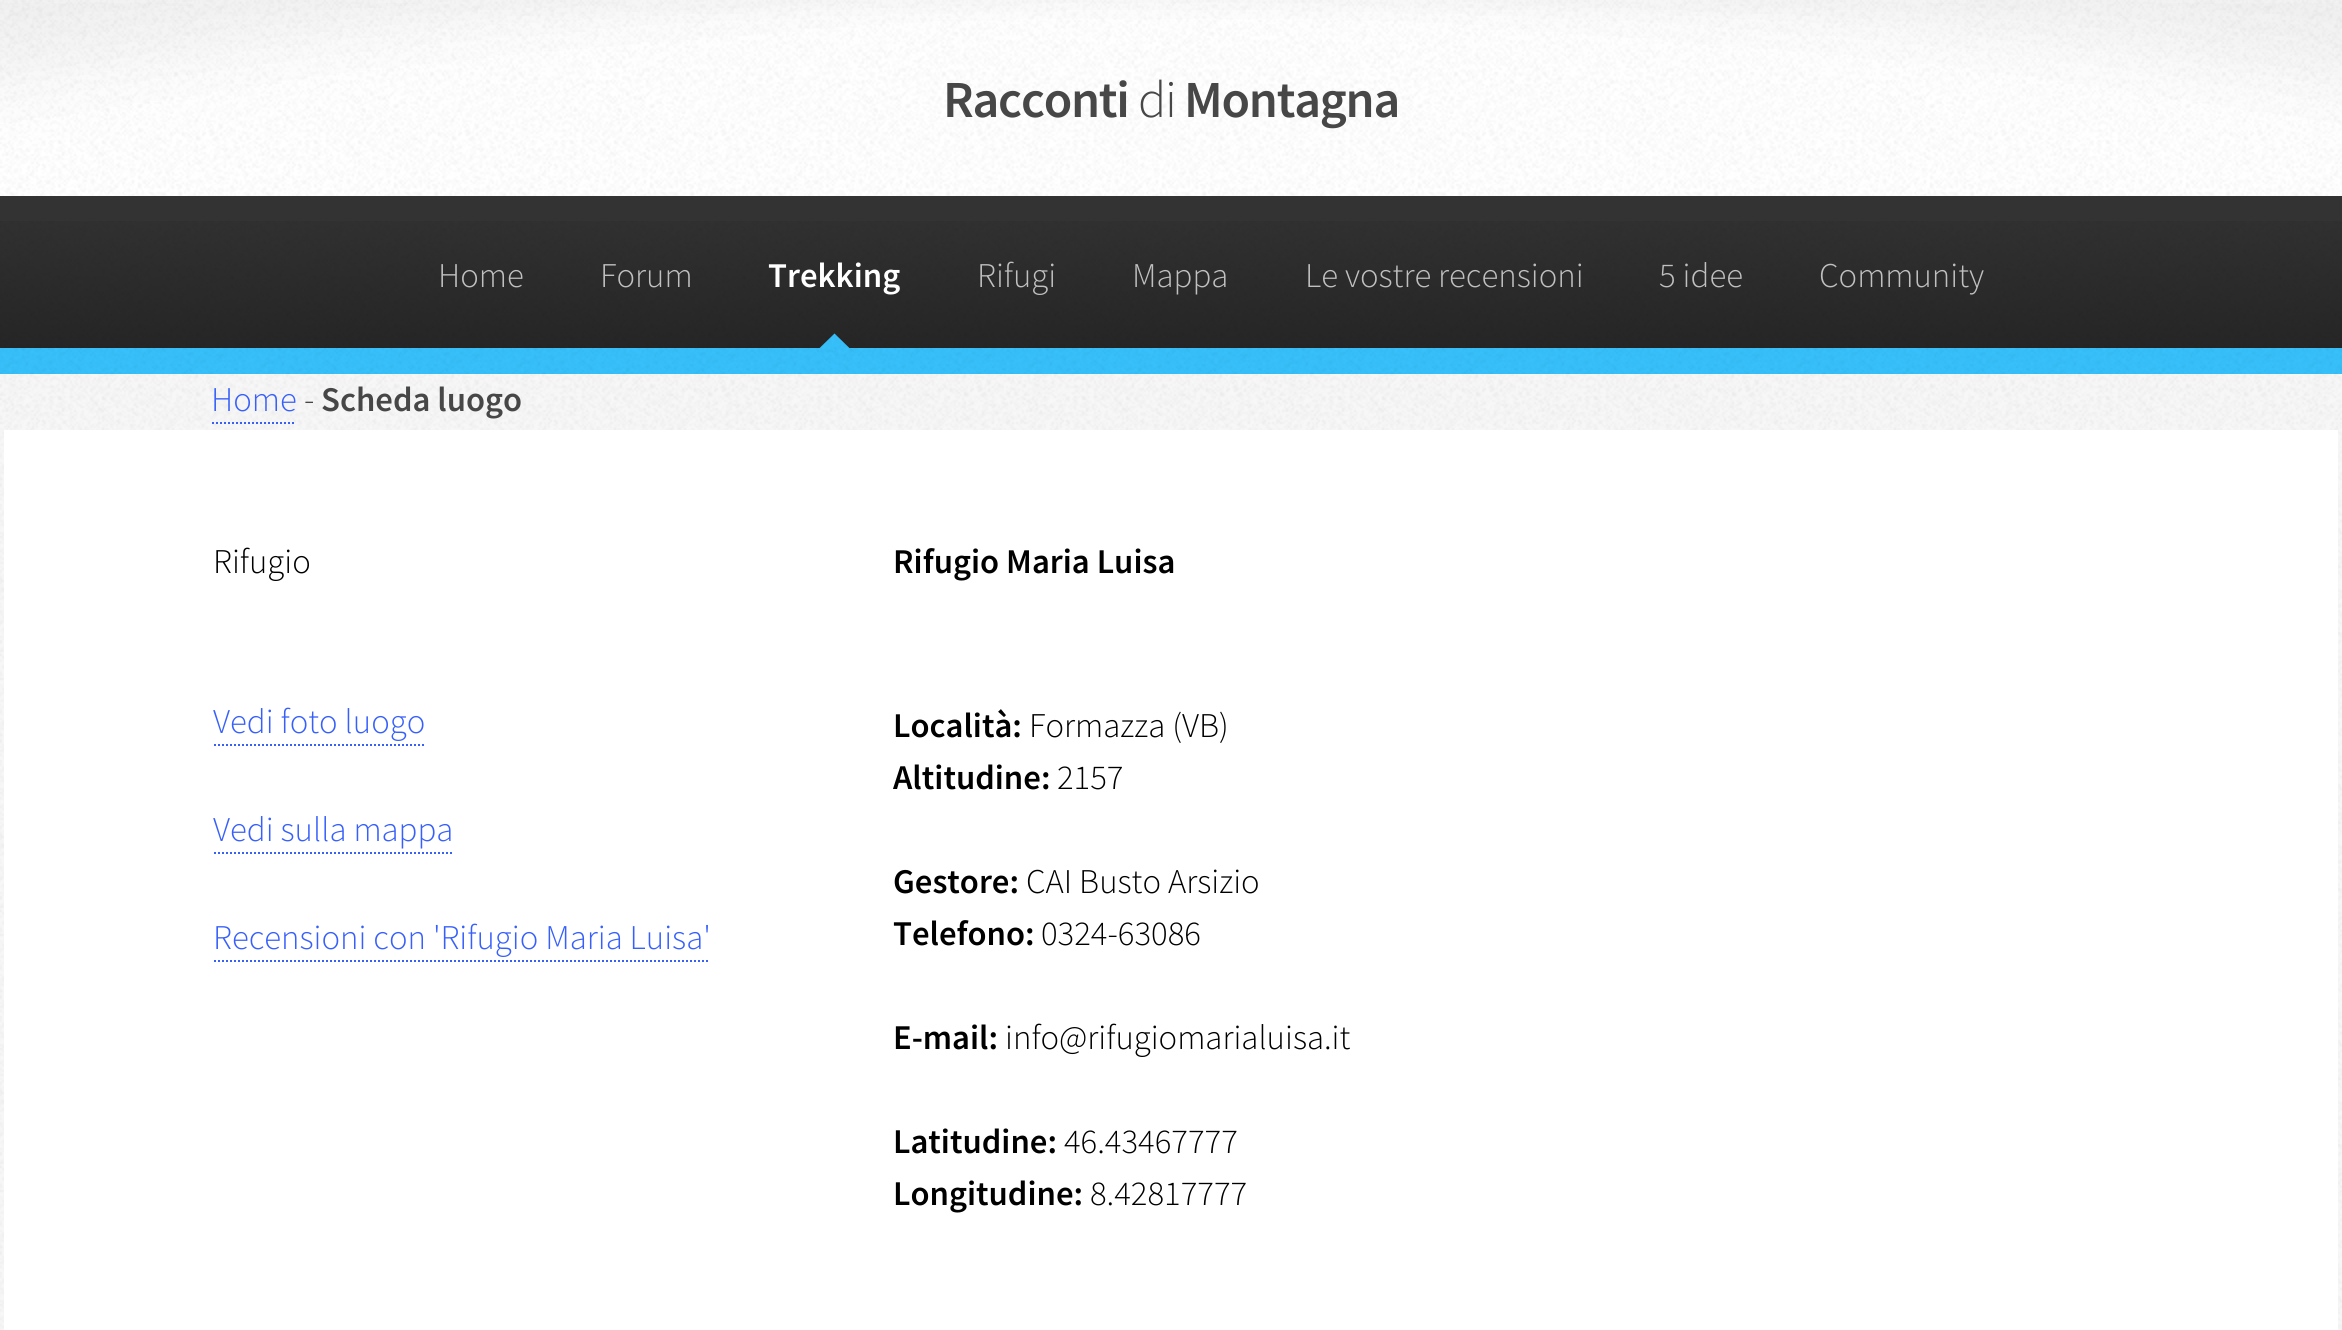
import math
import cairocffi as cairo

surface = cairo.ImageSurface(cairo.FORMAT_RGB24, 2342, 1330)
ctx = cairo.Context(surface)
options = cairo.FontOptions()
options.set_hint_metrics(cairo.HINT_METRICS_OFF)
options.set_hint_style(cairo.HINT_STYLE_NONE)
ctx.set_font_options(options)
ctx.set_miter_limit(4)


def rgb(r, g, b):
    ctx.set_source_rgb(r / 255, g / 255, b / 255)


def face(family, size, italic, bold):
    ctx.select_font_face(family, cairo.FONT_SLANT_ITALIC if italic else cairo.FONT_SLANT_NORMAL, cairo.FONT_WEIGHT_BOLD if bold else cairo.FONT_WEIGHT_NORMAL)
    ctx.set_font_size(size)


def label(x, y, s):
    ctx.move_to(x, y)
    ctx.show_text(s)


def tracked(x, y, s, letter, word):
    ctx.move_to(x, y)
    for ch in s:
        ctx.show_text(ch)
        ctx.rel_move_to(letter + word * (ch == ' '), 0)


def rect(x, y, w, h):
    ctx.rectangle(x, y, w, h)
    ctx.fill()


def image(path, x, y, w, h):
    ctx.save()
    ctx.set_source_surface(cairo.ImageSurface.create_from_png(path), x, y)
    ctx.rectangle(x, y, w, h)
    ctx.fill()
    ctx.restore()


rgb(247, 247, 247)
ctx.paint()
image('image0.png', 0, 374, 2342, 956)
rgb(255, 255, 255)
rect(0, 0, 2342, 196)
image('image1.png', 0, 0, 2342, 196)
face('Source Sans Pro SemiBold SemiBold', 52, 0, 0)
rgb(71, 71, 71)
tracked(943, 117, 'Racconti', -1.25, 0)
face('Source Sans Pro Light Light', 52, 0, 0)
tracked(1138, 117, 'di', -1.25, 0)
face('Source Sans Pro SemiBold SemiBold', 52, 0, 0)
tracked(1184, 117, 'Montagna', -1.25, 0)
rgb(51, 51, 51)
rect(0, 196, 2342, 152)
image('image2.png', 0, 221, 2342, 127)
face('Source Sans Pro Light Light', 34.7, 0, 0)
rgb(192, 192, 192)
label(438, 287, 'Home')
label(600, 287, 'Forum')
face('Source Sans Pro SemiBold SemiBold', 34.7, 0, 0)
rgb(255, 255, 255)
label(768, 287, 'Trekking')
rgb(55, 192, 251)
rect(0, 348, 2342, 26)
image('image4.png', 0, 348, 2342, 26)
ctx.new_path()
ctx.move_to(834.5, 333.5)
ctx.line_to(853, 351.5)
ctx.line_to(834.5, 370)
ctx.line_to(816, 351.5)
ctx.close_path()
ctx.fill()
image('image3.png', 817, 335, 36, 30)
face('Source Sans Pro Light Light', 34.7, 0, 0)
rgb(192, 192, 192)
label(977, 287, 'Rifugi')
label(1132, 287, 'Mappa')
label(1305, 287, 'Le vostre recensioni')
label(1659, 287, '5 idee')
label(1819, 287, 'Community')
rgb(55, 96, 251)
label(211, 411, 'Home')
ctx.new_path()
ctx.move_to(212, 423)
ctx.line_to(296, 423)
ctx.set_dash([2, 2])
ctx.stroke()
rgb(71, 71, 71)
label(304, 411, '-')
face('Source Sans Pro SemiBold SemiBold', 34.7, 0, 0)
label(321, 411, 'Scheda luogo')
rgb(255, 255, 255)
rect(4, 430, 2334, 900)
face('Source Sans Pro Light Light', 34.7, 0, 0)
rgb(0, 0, 0)
label(213, 573, 'Rifugio')
rgb(55, 96, 251)
label(213, 733, 'Vedi foto luogo')
ctx.new_path()
ctx.move_to(214, 745)
ctx.line_to(424, 745)
ctx.stroke()
label(213, 841, 'Vedi sulla mappa')
ctx.new_path()
ctx.move_to(214, 853)
ctx.line_to(454, 853)
ctx.stroke()
label(213, 949, 'Recensioni con \'Rifugio Maria Luisa\'')
ctx.new_path()
ctx.move_to(214, 961)
ctx.line_to(710, 961)
ctx.stroke()
face('Source Sans Pro SemiBold SemiBold', 34.7, 0, 0)
rgb(0, 0, 0)
label(893, 573, 'Rifugio Maria Luisa')
label(893, 737, 'Località:')
face('Source Sans Pro Light Light', 34.7, 0, 0)
label(1029, 737, 'Formazza (VB)')
face('Source Sans Pro SemiBold SemiBold', 34.7, 0, 0)
label(893, 789, 'Altitudine:')
face('Source Sans Pro Light Light', 34.7, 0, 0)
label(1057, 789, '2157')
face('Source Sans Pro SemiBold SemiBold', 34.7, 0, 0)
label(893, 893, 'Gestore:')
face('Source Sans Pro Light Light', 34.7, 0, 0)
label(1026, 893, 'CAI Busto Arsizio')
face('Source Sans Pro SemiBold SemiBold', 34.7, 0, 0)
label(893, 945, 'Telefono:')
face('Source Sans Pro Light Light', 34.7, 0, 0)
label(1041, 945, '0324-63086')
face('Source Sans Pro SemiBold SemiBold', 34.7, 0, 0)
label(893, 1049, 'E-mail:')
face('Source Sans Pro Light Light', 34.7, 0, 0)
label(1005, 1049, 'info@rifugiomarialuisa.it')
face('Source Sans Pro SemiBold SemiBold', 34.7, 0, 0)
label(893, 1153, 'Latitudine:')
face('Source Sans Pro Light Light', 34.7, 0, 0)
label(1064, 1153, '46.43467777')
face('Source Sans Pro SemiBold SemiBold', 34.7, 0, 0)
label(893, 1205, 'Longitudine:')
face('Source Sans Pro Light Light', 34.7, 0, 0)
label(1090, 1205, '8.42817777')
surface.write_to_png('render.png')
